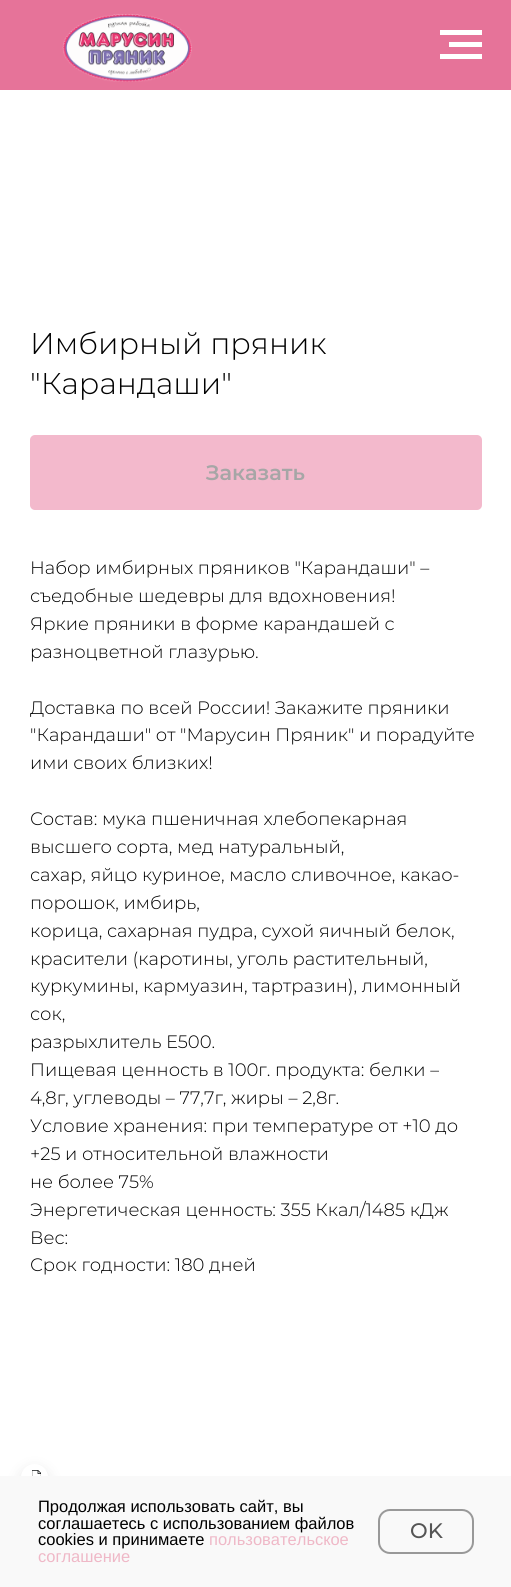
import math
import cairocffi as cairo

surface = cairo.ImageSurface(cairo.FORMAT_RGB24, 511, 1587)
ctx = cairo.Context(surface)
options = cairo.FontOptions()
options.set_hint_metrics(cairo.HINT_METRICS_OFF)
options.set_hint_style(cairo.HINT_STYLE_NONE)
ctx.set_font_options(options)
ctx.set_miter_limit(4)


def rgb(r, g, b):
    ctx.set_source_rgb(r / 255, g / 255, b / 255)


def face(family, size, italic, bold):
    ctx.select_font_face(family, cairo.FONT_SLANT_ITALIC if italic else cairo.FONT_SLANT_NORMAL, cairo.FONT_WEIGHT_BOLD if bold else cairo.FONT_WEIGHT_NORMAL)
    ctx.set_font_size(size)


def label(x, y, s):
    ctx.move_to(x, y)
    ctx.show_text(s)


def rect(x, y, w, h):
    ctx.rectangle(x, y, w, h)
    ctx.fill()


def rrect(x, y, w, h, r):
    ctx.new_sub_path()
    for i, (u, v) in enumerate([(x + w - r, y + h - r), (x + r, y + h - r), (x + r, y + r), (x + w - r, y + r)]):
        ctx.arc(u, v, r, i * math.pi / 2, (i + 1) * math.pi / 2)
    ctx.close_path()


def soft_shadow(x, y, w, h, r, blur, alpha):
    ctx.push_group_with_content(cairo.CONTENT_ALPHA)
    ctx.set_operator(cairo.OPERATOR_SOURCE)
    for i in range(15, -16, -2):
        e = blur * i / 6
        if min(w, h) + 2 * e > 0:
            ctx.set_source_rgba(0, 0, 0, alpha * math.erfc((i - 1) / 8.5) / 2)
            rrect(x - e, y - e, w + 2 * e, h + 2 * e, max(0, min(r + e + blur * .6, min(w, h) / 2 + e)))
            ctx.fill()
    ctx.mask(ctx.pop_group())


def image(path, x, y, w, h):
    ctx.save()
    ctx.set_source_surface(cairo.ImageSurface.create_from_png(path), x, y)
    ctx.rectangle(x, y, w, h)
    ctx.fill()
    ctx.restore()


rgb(255, 255, 255)
ctx.paint()
rgb(230, 115, 153)
rect(0, 0, 511, 90)
image('image0.png', 62, 14, 130, 68)
rgb(255, 255, 255)
rect(440, 30, 42, 5)
rect(449, 42, 33, 5)
rect(440, 54, 42, 5)
face('Montserrat Light', 30, 0, 0)
rgb(0, 0, 0)
label(30, 354, 'Имбирный пряник')
label(30, 394, '"Карандаши"')
rgb(243, 185, 204)
rrect(30, 435, 452, 75, 5)
ctx.fill()
face('Montserrat SemiBold', 21, 0, 0)
rgb(166, 166, 166)
label(206, 480, 'Заказать')
face('Montserrat Light', 18, 0, 0)
rgb(0, 0, 0)
label(30, 574, 'Набор имбирных пряников "Карандаши" –')
label(30, 602, 'съедобные шедевры для вдохновения!')
label(30, 630, 'Яркие пряники в форме карандашей с')
label(30, 658, 'разноцветной глазурью.')
label(30, 714, 'Доставка по всей России! Закажите пряники')
label(30, 741, '"Карандаши" от "Марусин Пряник" и порадуйте')
label(30, 769, 'ими своих близких!')
label(30, 825, 'Состав: мука пшеничная хлебопекарная')
label(30, 853, 'высшего сорта, мед натуральный,')
label(30, 881, 'сахар, яйцо куриное, масло сливочное, какао-')
label(30, 909, 'порошок, имбирь,')
label(30, 937, 'корица, сахарная пудра, сухой яичный белок,')
label(30, 965, 'красители (каротины, уголь растительный,')
label(30, 992, 'куркумины, кармуазин, тартразин), лимонный')
label(30, 1020, 'сок,')
label(30, 1048, 'разрыхлитель Е500.')
label(30, 1076, 'Пищевая ценность в 100г. продукта: белки –')
label(30, 1104, '4,8г, углеводы – 77,7г, жиры – 2,8г.')
label(30, 1132, 'Условие хранения: при температуре от +10 до')
label(30, 1160, '+25 и относительной влажности')
label(30, 1188, 'не более 75%')
label(30, 1216, 'Энергетическая ценность: 355 Ккал/1485 кДж')
label(30, 1244, 'Вес:')
label(30, 1271, 'Срок годности: 180 дней')
rgb(0, 0, 0)
soft_shadow(21, 1470, 27, 27, 13.5, 7.5, 0.1)
rgb(255, 255, 255)
ctx.arc(34.5, 1477.5, 13.5, 0, 2 * math.pi)
ctx.fill()
image('image1.png', 32, 1470, 9, 6)
rgb(249, 249, 249)
rect(0, 1476, 511, 111)
face('Liberation Sans', 16.5, 0, 0)
rgb(0, 0, 0)
label(38, 1512, 'Продолжая использовать сайт, вы')
label(38, 1529, 'соглашаетесь с использованием файлов')
label(38, 1545, 'cookies и принимаете')
rgb(239, 184, 199)
label(209, 1545, 'пользовательское')
label(38, 1562, 'соглашение')
rrect(379, 1510, 94, 43, 11)
rgb(153, 153, 153)
ctx.stroke()
face('Montserrat Medium', 21, 0, 0)
rgb(85, 85, 85)
label(410, 1538, 'OK')
surface.write_to_png('render.png')
